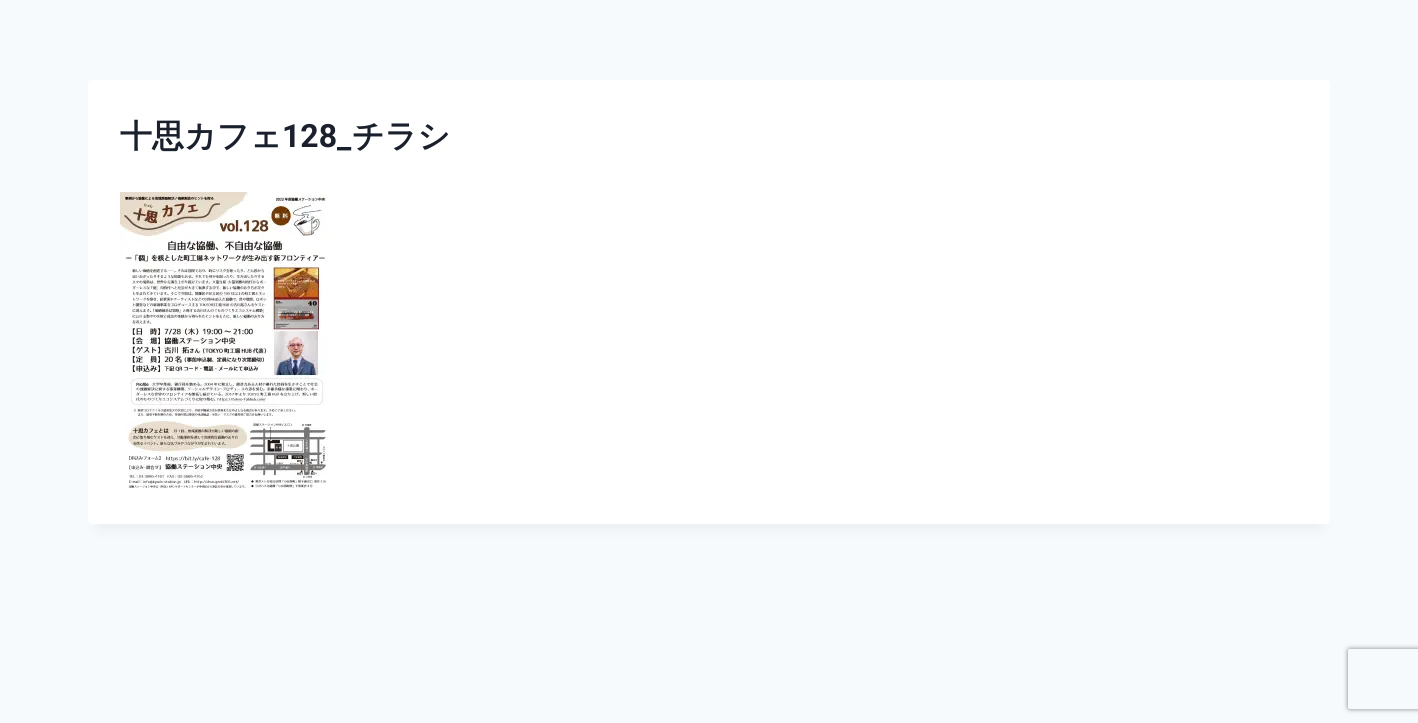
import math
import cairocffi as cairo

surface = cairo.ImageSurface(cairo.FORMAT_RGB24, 1418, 723)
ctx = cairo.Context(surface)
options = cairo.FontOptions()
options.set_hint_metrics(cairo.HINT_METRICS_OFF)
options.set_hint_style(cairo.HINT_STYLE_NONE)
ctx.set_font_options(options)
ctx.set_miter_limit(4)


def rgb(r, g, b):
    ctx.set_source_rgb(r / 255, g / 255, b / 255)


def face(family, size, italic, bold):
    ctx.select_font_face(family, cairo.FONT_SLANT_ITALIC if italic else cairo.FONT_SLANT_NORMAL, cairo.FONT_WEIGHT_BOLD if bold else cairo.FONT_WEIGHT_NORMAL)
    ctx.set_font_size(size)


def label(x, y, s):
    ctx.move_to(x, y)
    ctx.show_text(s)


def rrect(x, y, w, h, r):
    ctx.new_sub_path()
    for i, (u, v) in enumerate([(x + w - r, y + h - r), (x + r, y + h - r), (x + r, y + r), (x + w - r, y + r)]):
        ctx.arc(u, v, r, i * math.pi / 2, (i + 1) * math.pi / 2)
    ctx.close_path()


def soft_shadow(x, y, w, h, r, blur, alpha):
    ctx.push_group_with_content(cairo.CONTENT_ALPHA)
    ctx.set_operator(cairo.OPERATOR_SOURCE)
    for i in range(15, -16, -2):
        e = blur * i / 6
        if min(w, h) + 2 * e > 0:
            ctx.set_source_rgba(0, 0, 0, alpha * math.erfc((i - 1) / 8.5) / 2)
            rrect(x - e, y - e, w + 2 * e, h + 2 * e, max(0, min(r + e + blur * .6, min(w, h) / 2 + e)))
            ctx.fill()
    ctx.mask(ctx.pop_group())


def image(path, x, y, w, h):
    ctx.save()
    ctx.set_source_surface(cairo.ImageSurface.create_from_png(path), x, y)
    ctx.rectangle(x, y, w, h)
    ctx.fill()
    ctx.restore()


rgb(247, 250, 252)
ctx.paint()
rgb(0, 0, 0)
soft_shadow(98, 105, 1222, 424, 0, 7.5, 0.05)
rgb(255, 255, 255)
rrect(88, 80, 1242, 444, 4)
ctx.fill()
face('WenQuanYi Zen Hei', 32, 0, 1)
rgb(26, 32, 44)
label(120, 147, '十思カフェ')
face('Roboto', 32, 0, 1)
label(282, 147, '128_')
face('WenQuanYi Zen Hei', 32, 0, 1)
label(352, 147, 'チラシ')
image('image0.png', 120, 192, 208, 297)
ctx.save()
ctx.set_fill_rule(cairo.FILL_RULE_EVEN_ODD)
ctx.new_path()
ctx.move_to(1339, 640)
ctx.line_to(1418, 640)
ctx.line_to(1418, 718)
ctx.line_to(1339, 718)
ctx.close_path()
ctx.move_to(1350, 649)
ctx.line_to(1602, 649)
ctx.curve_to(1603, 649, 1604, 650, 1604, 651)
ctx.line_to(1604, 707)
ctx.curve_to(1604, 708, 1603, 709, 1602, 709)
ctx.line_to(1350, 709)
ctx.curve_to(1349, 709, 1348, 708, 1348, 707)
ctx.line_to(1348, 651)
ctx.curve_to(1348, 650, 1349, 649, 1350, 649)
ctx.close_path()
ctx.clip()
rgb(128, 128, 128)
soft_shadow(1348, 649, 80, 60, 2, 2.5, 1)
ctx.restore()
surface.write_to_png('render.png')
